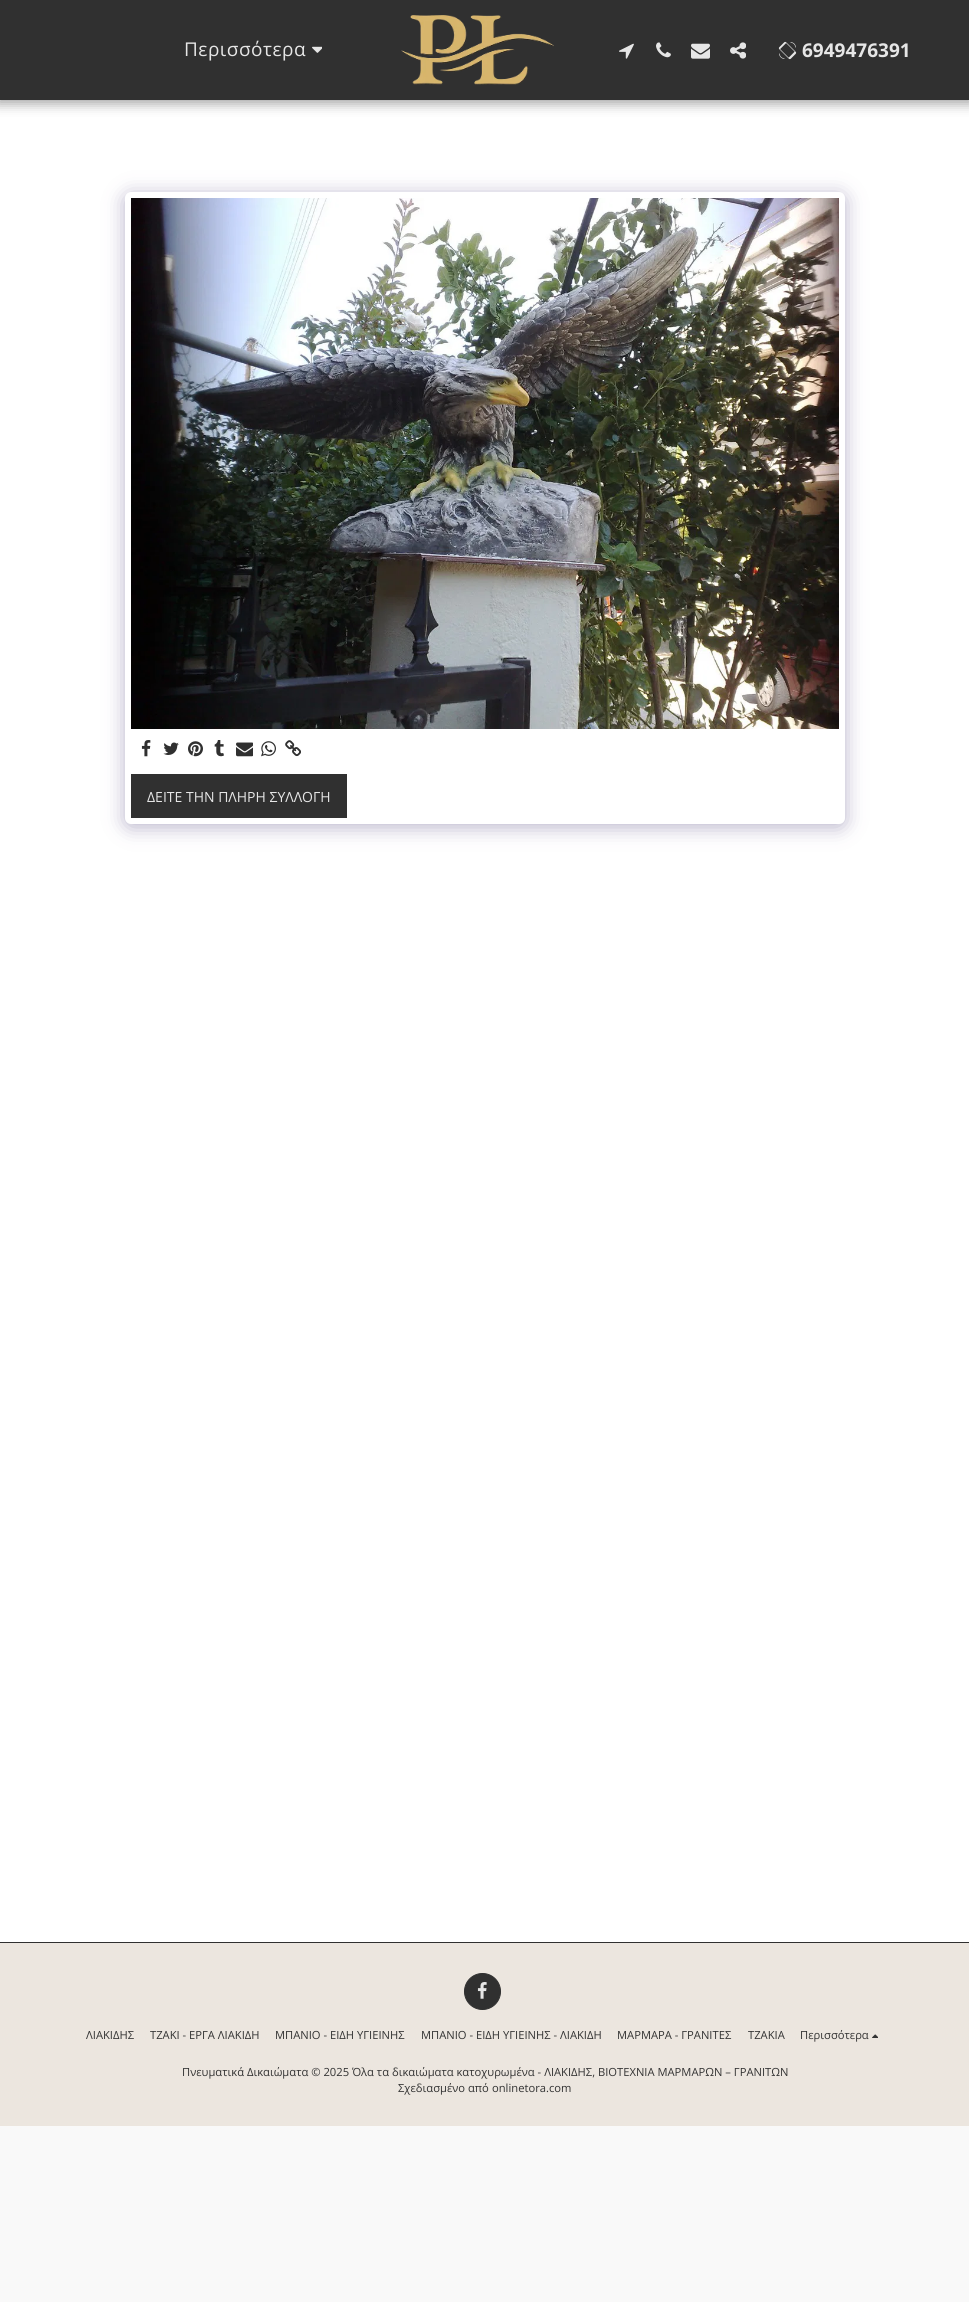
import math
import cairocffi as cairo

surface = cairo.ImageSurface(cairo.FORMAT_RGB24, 969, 2302)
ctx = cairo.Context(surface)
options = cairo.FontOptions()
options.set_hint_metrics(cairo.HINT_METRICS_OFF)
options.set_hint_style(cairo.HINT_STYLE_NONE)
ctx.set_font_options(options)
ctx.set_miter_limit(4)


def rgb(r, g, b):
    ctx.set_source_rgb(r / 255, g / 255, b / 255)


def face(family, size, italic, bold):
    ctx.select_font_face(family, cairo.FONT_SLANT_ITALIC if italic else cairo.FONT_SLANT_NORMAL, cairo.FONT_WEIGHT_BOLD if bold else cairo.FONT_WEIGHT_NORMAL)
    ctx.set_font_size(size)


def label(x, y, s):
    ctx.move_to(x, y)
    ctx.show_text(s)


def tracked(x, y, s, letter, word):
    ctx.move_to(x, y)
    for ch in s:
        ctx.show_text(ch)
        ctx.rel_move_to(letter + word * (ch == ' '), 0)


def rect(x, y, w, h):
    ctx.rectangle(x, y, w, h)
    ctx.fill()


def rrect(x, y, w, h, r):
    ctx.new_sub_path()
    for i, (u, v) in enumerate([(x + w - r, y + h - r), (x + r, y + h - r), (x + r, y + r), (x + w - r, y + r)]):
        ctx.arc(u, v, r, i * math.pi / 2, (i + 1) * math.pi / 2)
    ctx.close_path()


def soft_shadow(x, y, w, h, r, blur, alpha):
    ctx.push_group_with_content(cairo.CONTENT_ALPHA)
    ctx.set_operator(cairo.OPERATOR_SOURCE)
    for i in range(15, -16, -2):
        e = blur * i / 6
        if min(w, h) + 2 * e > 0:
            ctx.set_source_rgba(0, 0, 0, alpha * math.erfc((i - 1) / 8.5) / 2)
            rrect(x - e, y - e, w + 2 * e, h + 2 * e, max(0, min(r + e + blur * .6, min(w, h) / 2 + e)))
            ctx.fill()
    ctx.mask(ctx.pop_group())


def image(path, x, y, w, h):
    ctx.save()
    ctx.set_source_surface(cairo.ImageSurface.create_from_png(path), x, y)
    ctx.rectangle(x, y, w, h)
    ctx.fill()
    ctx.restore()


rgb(249, 249, 249)
ctx.paint()
rgb(255, 255, 255)
rect(0, 100, 969, 1842)
rgb(0, 0, 0)
soft_shadow(-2, 0, 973, 104, 0, 6, 0.35)
rgb(48, 48, 48)
rect(0, 0, 969, 100)
face('Open Sans', 19, 0, 0)
rgb(230, 230, 230)
tracked(184, 56, 'Περισσότερα', 0.5, 0)
image('image0.png', 312, 46, 10, 7)
image('image1.png', 401, 15, 153, 70)
image('image2.png', 619, 43, 15, 16)
image('image3.png', 656, 42, 15, 16)
image('image4.png', 691, 43, 19, 16)
image('image5.png', 730, 42, 16, 17)
image('image6.png', 778, 41, 19, 19)
face('Open Sans', 19, 0, 1)
label(802, 57, '6949476391')
rgb(77, 63, 122)
soft_shadow(125, 195, 720, 632, 6, 10, 0.4)
rgb(255, 255, 255)
rrect(125, 192, 720, 632, 6)
ctx.fill()
image('image7.png', 131, 198, 708, 531)
image('image8.png', 141, 740, 10, 17)
image('image9.png', 163, 742, 16, 13)
image('image10.png', 188, 741, 15, 16)
image('image11.png', 214, 740, 10, 17)
image('image12.png', 236, 742, 17, 15)
image('image13.png', 261, 741, 15, 16)
image('image14.png', 285, 740, 16, 17)
rgb(48, 48, 48)
rect(131, 774, 216, 44)
face('Open Sans', 14, 0, 0)
rgb(230, 230, 230)
label(147, 802, 'ΔΕΙΤΕ ΤΗΝ ΠΛΗΡΗ ΣΥΛΛΟΓΗ')
rgb(48, 48, 48)
rect(0, 1942, 969, 1)
rgb(236, 230, 223)
rect(0, 1943, 969, 183)
rgb(48, 48, 48)
ctx.new_path()
ctx.arc(482.5, 1991.5, 18, 0, 2 * math.pi)
ctx.fill_preserve()
ctx.set_line_width(1)
ctx.stroke()
image('image15.png', 477, 1982, 10, 17)
face('Open Sans', 11.2, 0, 0)
rgb(51, 51, 51)
label(86, 2039, 'ΛΙΑΚΙΔΗΣ')
label(150, 2039, 'ΤΖΑΚΙ - ΕΡΓΑ ΛΙΑΚΙΔΗ')
label(275, 2039, 'ΜΠΑΝΙΟ - ΕΙΔΗ ΥΓΙΕΙΝΗΣ')
label(421, 2039, 'ΜΠΑΝΙΟ - ΕΙΔΗ ΥΓΙΕΙΝΗΣ - ΛΙΑΚΙΔΗ')
label(617, 2039, 'ΜΑΡΜΑΡΑ - ΓΡΑΝΙΤΕΣ')
label(748, 2039, 'ΤΖΑΚΙΑ')
label(800, 2039, 'Περισσότερα')
image('image16.png', 872, 2034, 6, 4)
label(182, 2076, 'Πνευματικά Δικαιώματα © 2025 Όλα τα δικαιώματα κατοχυρωμένα - ΛΙΑΚΙΔΗΣ, ΒΙΟΤΕΧΝΙΑ ΜΑΡΜΑΡΩΝ – ΓΡΑΝΙΤΩΝ')
label(398, 2092, 'Σχεδιασμένο από')
label(492, 2092, 'onlinetora.com')
surface.write_to_png('render.png')
